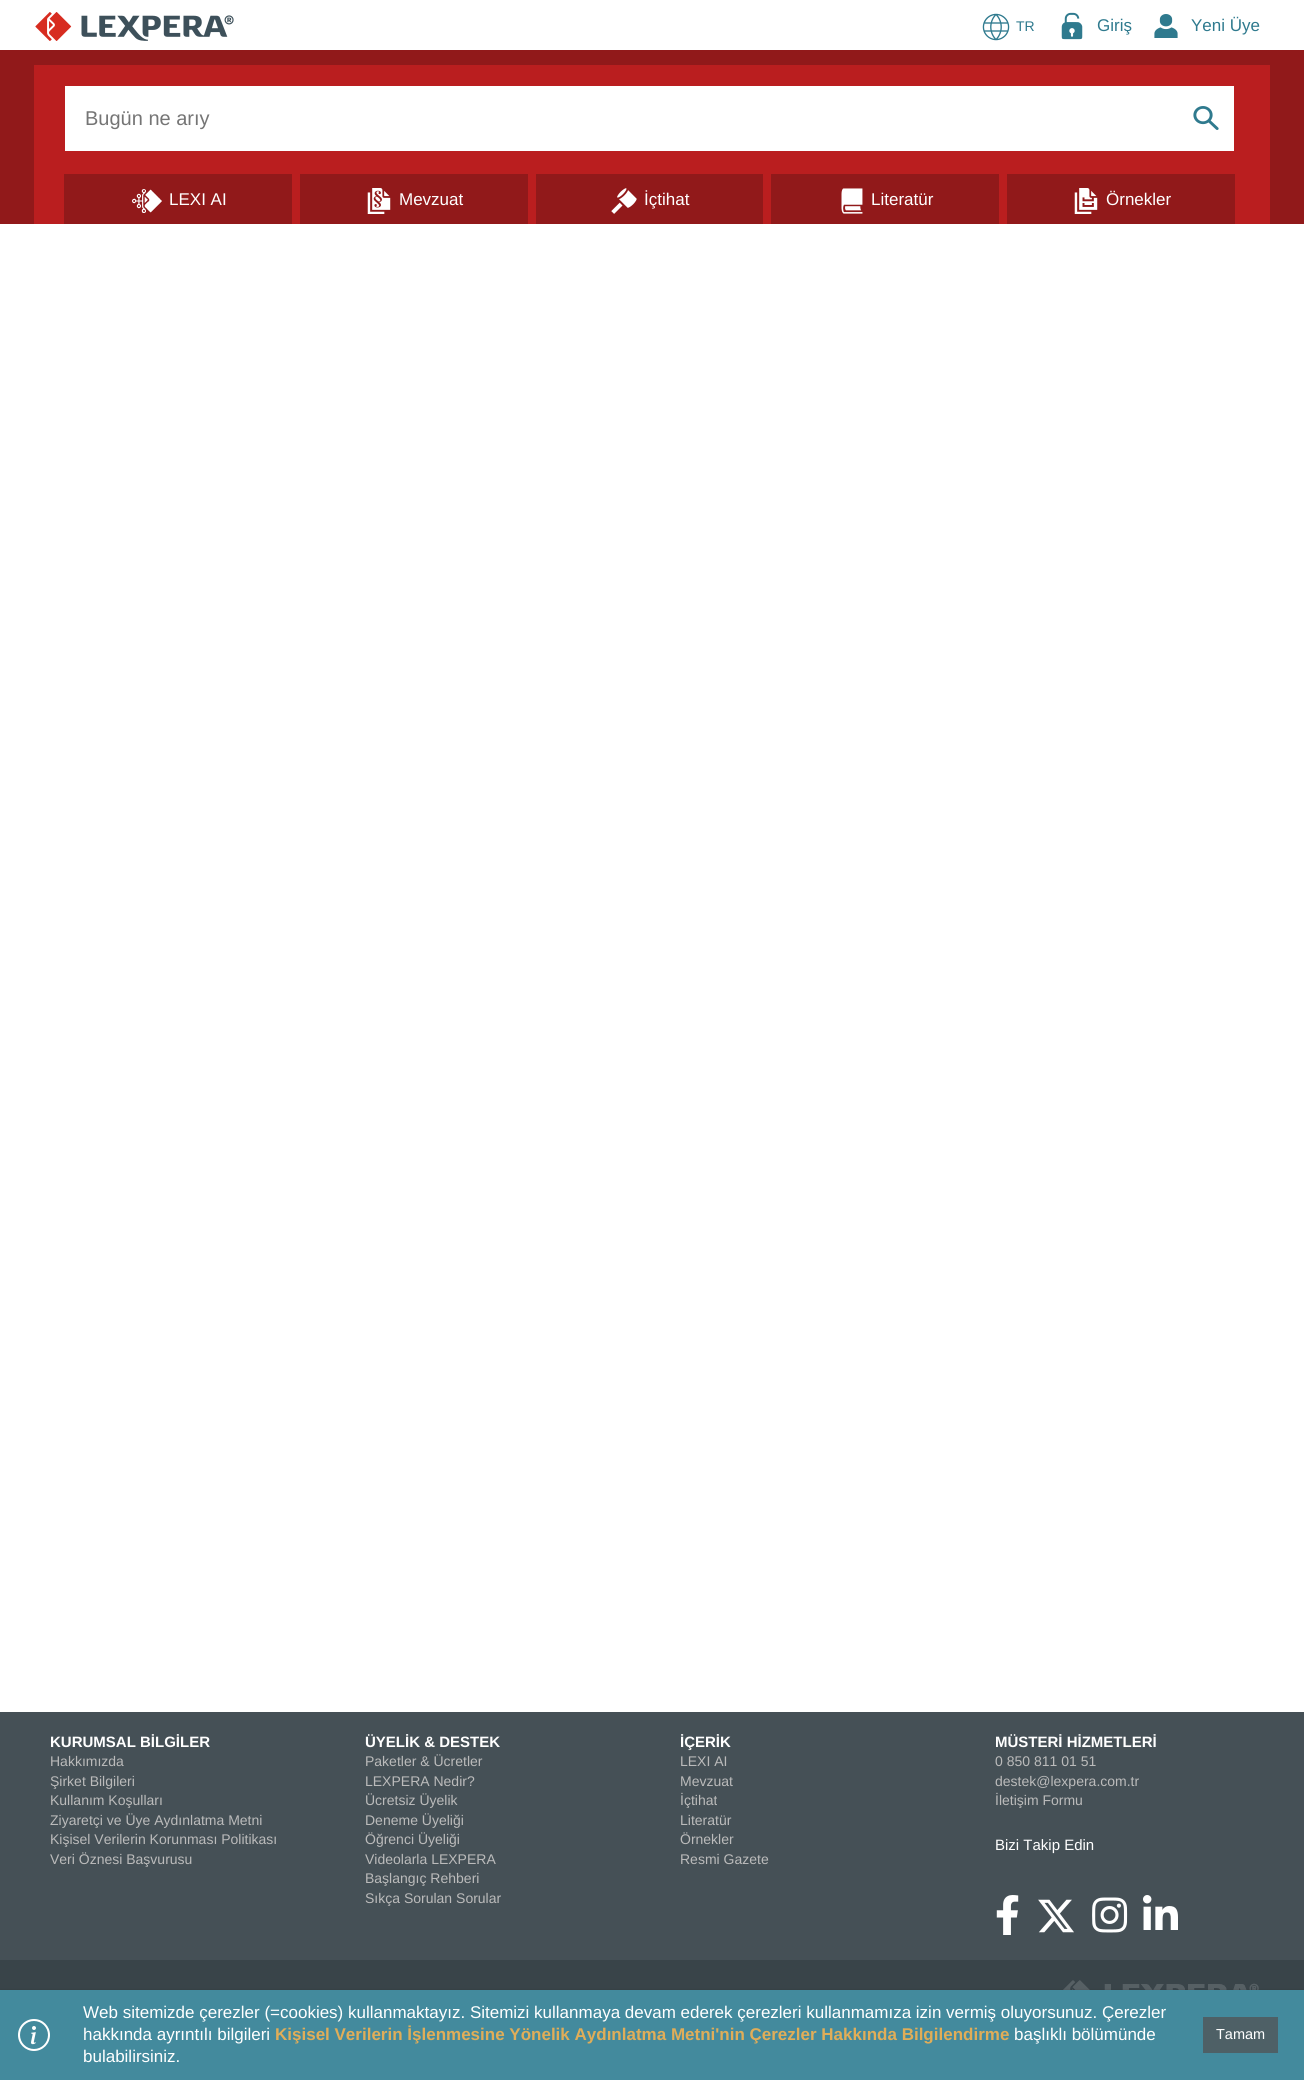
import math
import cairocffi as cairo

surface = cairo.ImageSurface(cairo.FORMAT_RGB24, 1304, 2080)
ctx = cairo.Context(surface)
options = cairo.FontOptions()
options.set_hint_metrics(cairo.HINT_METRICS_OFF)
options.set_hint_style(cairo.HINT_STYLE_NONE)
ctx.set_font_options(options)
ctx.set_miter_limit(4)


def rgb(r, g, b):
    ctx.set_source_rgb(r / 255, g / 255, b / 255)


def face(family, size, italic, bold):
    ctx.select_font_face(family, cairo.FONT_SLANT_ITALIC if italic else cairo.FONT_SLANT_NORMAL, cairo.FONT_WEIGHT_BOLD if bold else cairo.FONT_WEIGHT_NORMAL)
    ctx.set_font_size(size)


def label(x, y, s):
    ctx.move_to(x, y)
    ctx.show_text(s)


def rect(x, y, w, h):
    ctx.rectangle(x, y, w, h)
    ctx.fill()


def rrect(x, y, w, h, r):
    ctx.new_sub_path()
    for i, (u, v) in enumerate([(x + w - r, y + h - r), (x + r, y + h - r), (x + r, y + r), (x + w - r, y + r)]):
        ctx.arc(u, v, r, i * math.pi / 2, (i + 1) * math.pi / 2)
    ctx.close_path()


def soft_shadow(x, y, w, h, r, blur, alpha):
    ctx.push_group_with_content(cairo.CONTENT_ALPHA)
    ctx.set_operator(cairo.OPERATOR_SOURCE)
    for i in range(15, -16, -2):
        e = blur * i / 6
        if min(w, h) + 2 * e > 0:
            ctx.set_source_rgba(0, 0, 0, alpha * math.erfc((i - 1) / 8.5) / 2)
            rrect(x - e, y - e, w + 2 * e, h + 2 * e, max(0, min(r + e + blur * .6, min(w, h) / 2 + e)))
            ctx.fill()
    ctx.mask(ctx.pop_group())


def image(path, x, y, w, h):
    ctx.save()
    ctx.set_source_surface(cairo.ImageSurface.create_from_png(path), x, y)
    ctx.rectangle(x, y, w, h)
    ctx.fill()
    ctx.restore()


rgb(255, 255, 255)
ctx.paint()
image('image0.png', 35, 12, 199, 29)
image('image1.png', 982, 13, 28, 28)
face('Liberation Sans', 14, 0, 0)
rgb(47, 122, 142)
label(1016, 31, 'TR')
image('image2.png', 1061, 12, 22, 28)
face('Liberation Sans', 17, 0, 0)
label(1097, 31, 'Giriş')
image('image3.png', 1154, 14, 24, 24)
label(1191, 31, 'Yeni Üye')
rgb(145, 25, 26)
rect(0, 50, 1304, 174)
rgb(186, 30, 31)
rect(34, 65, 1236, 159)
rgb(255, 255, 255)
rect(65, 86, 1169, 65)
face('Liberation Sans', 20, 0, 0)
rgb(117, 117, 117)
label(85, 125, 'Bugün ne arıy')
image('image4.png', 1193, 106, 26, 24)
rgb(145, 25, 26)
rect(64, 174, 228, 50)
image('image5.png', 132, 189, 30, 24)
face('Liberation Sans', 17, 0, 0)
rgb(255, 255, 255)
label(169, 205, 'LEXI AI')
rgb(145, 25, 26)
rect(300, 174, 228, 50)
image('image6.png', 367, 188, 24, 26)
rgb(255, 255, 255)
label(399, 205, 'Mevzuat')
rgb(145, 25, 26)
rect(536, 174, 227, 50)
image('image7.png', 611, 188, 26, 26)
rgb(255, 255, 255)
label(644, 205, 'İçtihat')
rgb(145, 25, 26)
rect(771, 174, 228, 50)
image('image8.png', 841, 188, 22, 26)
rgb(255, 255, 255)
label(871, 205, 'Literatür')
rgb(145, 25, 26)
rect(1007, 174, 228, 50)
image('image9.png', 1074, 188, 24, 26)
rgb(255, 255, 255)
label(1106, 205, 'Örnekler')
rgb(69, 80, 86)
rect(0, 1712, 1304, 248)
face('Liberation Sans', 15, 0, 1)
rgb(255, 255, 255)
label(50, 1747, 'KURUMSAL BİLGİLER')
face('Liberation Sans', 14, 0, 0)
rgb(187, 187, 187)
label(50, 1766, 'Hakkımızda')
label(50, 1786, 'Şirket Bilgileri')
label(50, 1805, 'Kullanım Koşulları')
label(50, 1825, 'Ziyaretçi ve Üye Aydınlatma Metni')
label(50, 1844, 'Kişisel Verilerin Korunması Politikası')
label(50, 1864, 'Veri Öznesi Başvurusu')
face('Liberation Sans', 15, 0, 1)
rgb(255, 255, 255)
label(365, 1747, 'ÜYELİK & DESTEK')
face('Liberation Sans', 14, 0, 0)
rgb(187, 187, 187)
label(365, 1766, 'Paketler & Ücretler')
label(365, 1786, 'LEXPERA Nedir?')
label(365, 1805, 'Ücretsiz Üyelik')
label(365, 1825, 'Deneme Üyeliği')
label(365, 1844, 'Öğrenci Üyeliği')
label(365, 1864, 'Videolarla LEXPERA')
label(365, 1883, 'Başlangıç Rehberi')
label(365, 1903, 'Sıkça Sorulan Sorular')
face('Liberation Sans', 15, 0, 1)
rgb(255, 255, 255)
label(680, 1747, 'İÇERİK')
face('Liberation Sans', 14, 0, 0)
rgb(187, 187, 187)
label(680, 1766, 'LEXI AI')
label(680, 1786, 'Mevzuat')
label(680, 1805, 'İçtihat')
label(680, 1825, 'Literatür')
label(680, 1844, 'Örnekler')
label(680, 1864, 'Resmi Gazete')
face('Liberation Sans', 15, 0, 1)
rgb(255, 255, 255)
label(995, 1747, 'MÜSTERİ HİZMETLERİ')
face('Liberation Sans', 14, 0, 0)
rgb(187, 187, 187)
label(995, 1766, '0 850 811 01 51')
label(995, 1786, 'destek@lexpera.com.tr')
label(995, 1805, 'İletişim Formu')
face('Liberation Sans', 15, 0, 0)
rgb(255, 255, 255)
label(995, 1850, 'Bizi Takip Edin')
image('image10.png', 996, 1895, 23, 40)
image('image11.png', 1038, 1899, 36, 34)
image('image12.png', 1092, 1897, 36, 36)
image('image13.png', 1143, 1895, 35, 35)
rgb(57, 68, 73)
rect(0, 1960, 1304, 30)
image('image14.png', 1058, 1980, 201, 10)
rgb(0, 0, 0)
soft_shadow(0, 1991, 1304, 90, 0, 1.5, 0.3)
rgb(67, 138, 157)
rect(0, 1990, 1304, 90)
image('image15.png', 18, 2019, 32, 32)
face('Liberation Sans', 17, 0, 0)
rgb(255, 255, 255)
label(83, 2018, 'Web sitemizde çerezler (=cookies) kullanmaktayız. Sitemizi kullanmaya devam ederek çerezleri kullanmamıza izin vermiş oluyorsunuz. Çerezler')
label(83, 2040, 'hakkında ayrıntılı bilgileri')
face('Liberation Sans', 17, 0, 1)
rgb(224, 173, 88)
label(275, 2040, 'Kişisel Verilerin İşlenmesine Yönelik Aydınlatma Metni\'nin Çerezler Hakkında Bilgilendirme')
face('Liberation Sans', 17, 0, 0)
rgb(255, 255, 255)
label(1014, 2040, 'başlıklı bölümünde')
label(83, 2062, 'bulabilirsiniz.')
rgb(78, 96, 102)
rect(1203, 2017, 75, 36)
face('Liberation Sans', 14.5, 0, 0)
rgb(255, 255, 255)
label(1216, 2039, 'Tamam')
surface.write_to_png('render.png')
